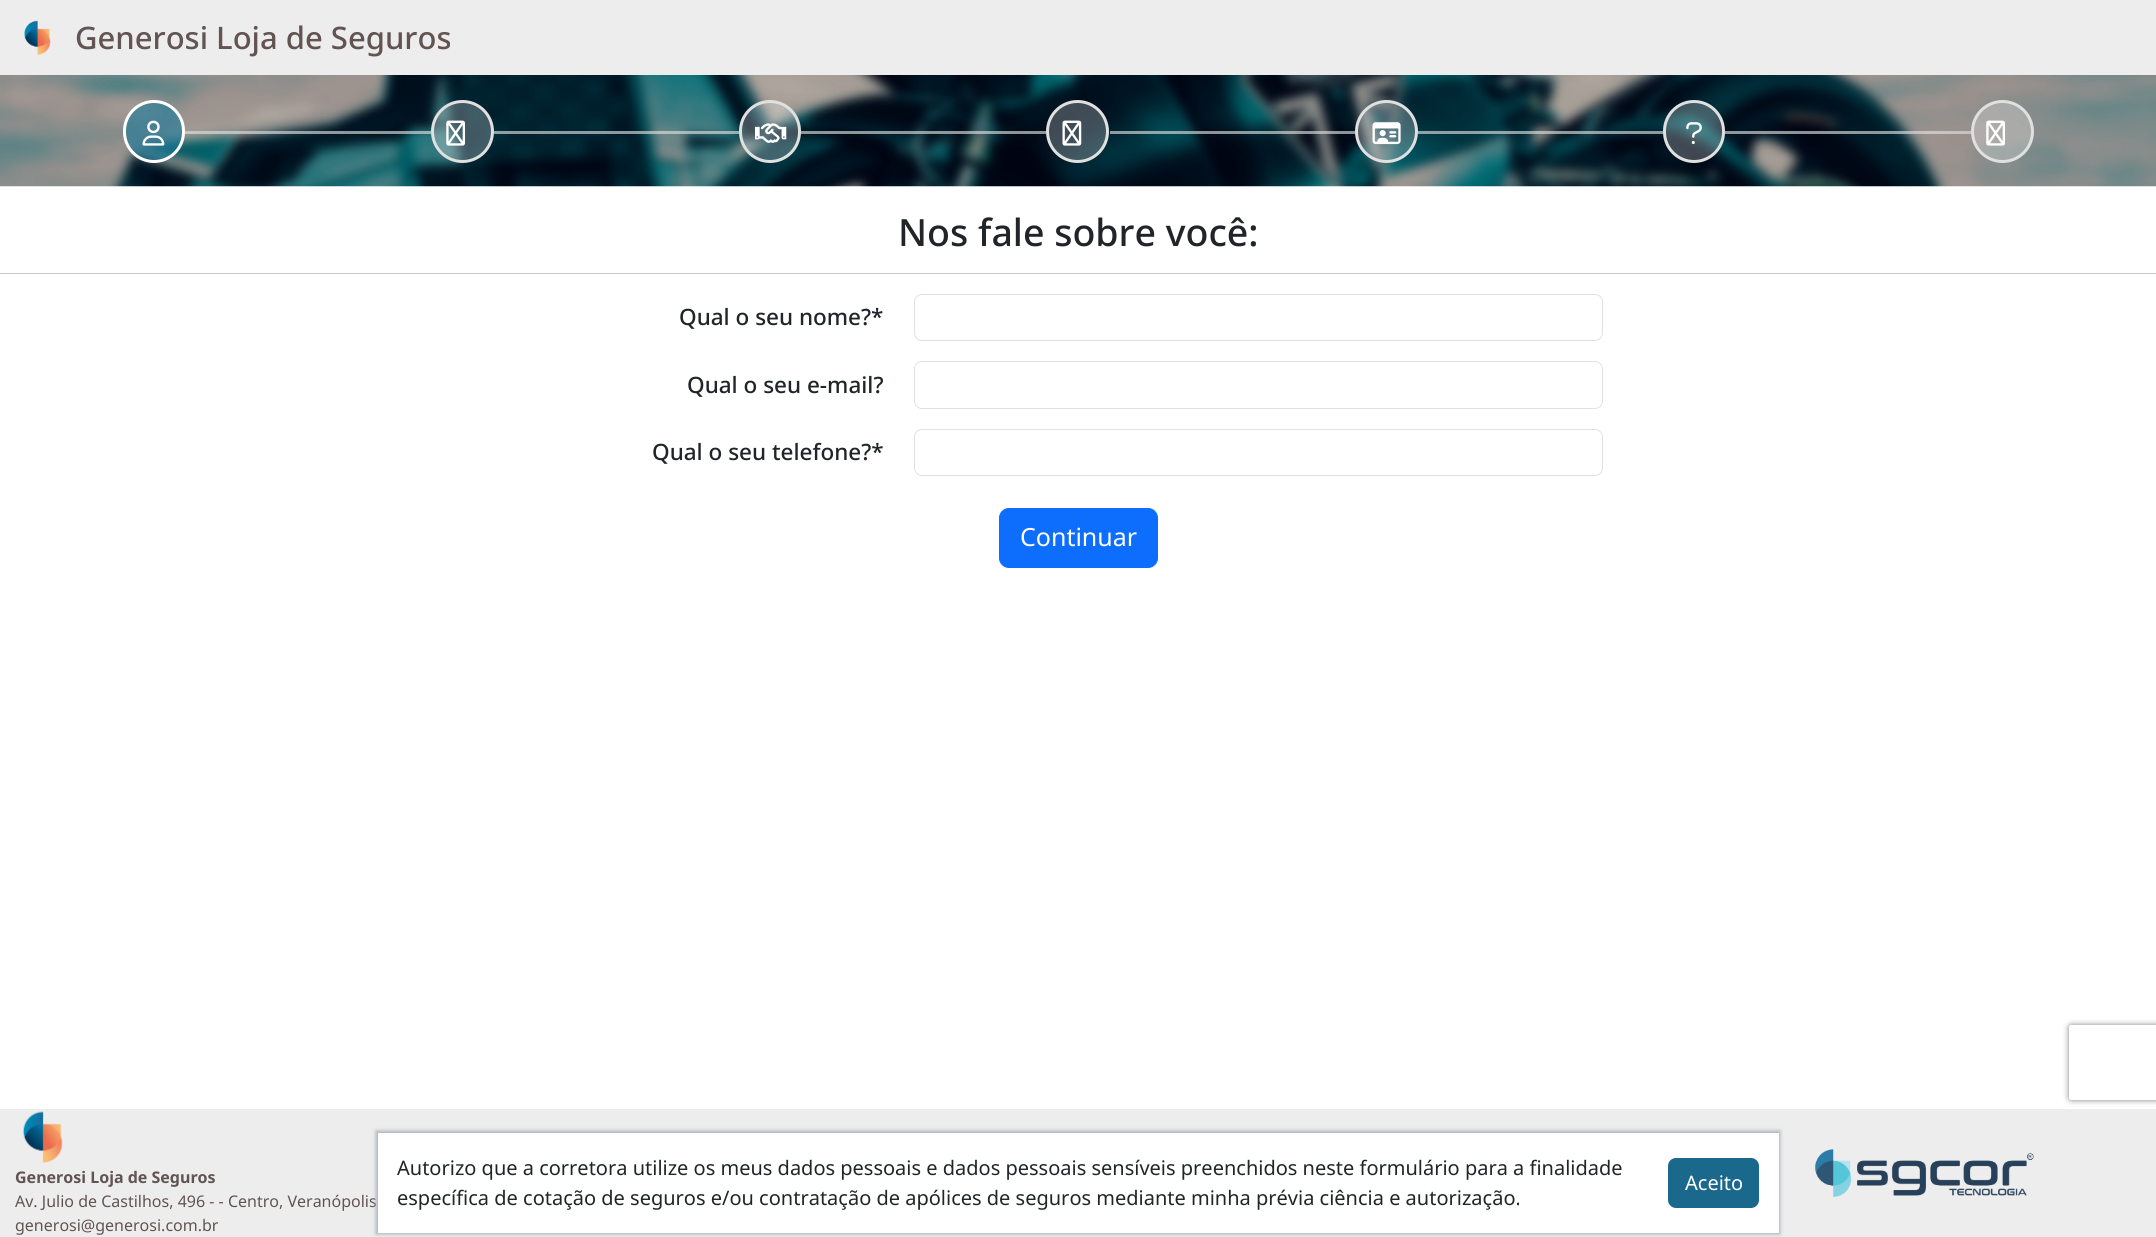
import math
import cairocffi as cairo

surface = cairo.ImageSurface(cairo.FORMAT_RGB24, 2156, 1237)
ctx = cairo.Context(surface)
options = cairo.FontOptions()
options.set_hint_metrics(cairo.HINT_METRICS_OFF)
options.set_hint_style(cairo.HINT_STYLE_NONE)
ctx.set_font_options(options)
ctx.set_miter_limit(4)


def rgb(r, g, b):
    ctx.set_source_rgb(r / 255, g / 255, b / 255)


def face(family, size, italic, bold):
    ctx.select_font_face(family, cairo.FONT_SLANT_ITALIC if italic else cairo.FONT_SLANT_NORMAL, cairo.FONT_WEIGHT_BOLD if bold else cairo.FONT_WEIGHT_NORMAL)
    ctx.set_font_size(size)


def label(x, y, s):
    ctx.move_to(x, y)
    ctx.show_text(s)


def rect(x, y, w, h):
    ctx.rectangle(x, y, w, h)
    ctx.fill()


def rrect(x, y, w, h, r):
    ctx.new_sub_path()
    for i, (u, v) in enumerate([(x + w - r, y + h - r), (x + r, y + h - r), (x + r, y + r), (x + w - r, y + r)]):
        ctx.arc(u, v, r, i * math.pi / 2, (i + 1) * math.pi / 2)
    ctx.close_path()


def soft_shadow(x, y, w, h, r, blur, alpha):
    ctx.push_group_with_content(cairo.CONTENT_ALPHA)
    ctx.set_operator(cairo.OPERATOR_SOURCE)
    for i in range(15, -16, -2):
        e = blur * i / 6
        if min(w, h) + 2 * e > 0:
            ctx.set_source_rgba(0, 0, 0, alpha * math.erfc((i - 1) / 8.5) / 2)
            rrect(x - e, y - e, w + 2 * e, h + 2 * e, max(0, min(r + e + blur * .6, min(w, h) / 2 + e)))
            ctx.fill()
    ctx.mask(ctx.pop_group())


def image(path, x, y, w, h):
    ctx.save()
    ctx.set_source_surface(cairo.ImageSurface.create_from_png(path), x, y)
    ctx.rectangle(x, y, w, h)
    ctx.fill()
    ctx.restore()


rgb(255, 255, 255)
ctx.paint()
rgb(237, 237, 237)
rect(0, 0, 2156, 75)
image('image0.png', 24, 20, 27, 36)
face('Noto Sans Medium', 31, 0, 0)
rgb(99, 84, 84)
label(75, 49, 'Generosi Loja de Seguros')
image('image1.png', 0, 75, 2156, 112)
ctx.set_source_rgba(0.059, 0.467, 0.608, 0.56)
rrect(124.5, 101.5, 59, 60, 29.5)
ctx.fill_preserve()
rgb(255, 255, 255)
ctx.set_line_width(3)
ctx.stroke()
image('image2.png', 142, 120, 23, 26)
ctx.set_source_rgba(0.878, 0.878, 0.878, 0.64)
rect(185, 131, 246, 3)
ctx.set_source_rgba(1, 1, 1, 0.25)
ctx.arc(462.5, 131.5, 30, 0, 2 * math.pi)
ctx.fill_preserve()
rgb(224, 224, 224)
ctx.stroke()
image('image3.png', 446, 120, 19, 26)
ctx.set_source_rgba(0.878, 0.878, 0.878, 0.64)
rect(494, 131, 245, 3)
ctx.set_source_rgba(1, 1, 1, 0.25)
rrect(740.5, 101.5, 59, 60, 29.5)
ctx.fill_preserve()
rgb(224, 224, 224)
ctx.stroke()
image('image4.png', 755, 123, 32, 20)
ctx.set_source_rgba(0.878, 0.878, 0.878, 0.64)
rect(801, 131, 245, 3)
ctx.set_source_rgba(1, 1, 1, 0.25)
ctx.arc(1077.5, 131.5, 30, 0, 2 * math.pi)
ctx.fill_preserve()
rgb(224, 224, 224)
ctx.stroke()
image('image5.png', 1062, 120, 20, 26)
ctx.set_source_rgba(0.878, 0.878, 0.878, 0.64)
rect(1110, 131, 245, 3)
ctx.set_source_rgba(1, 1, 1, 0.25)
ctx.arc(1386.5, 131.5, 30, 0, 2 * math.pi)
ctx.fill_preserve()
rgb(224, 224, 224)
ctx.stroke()
image('image6.png', 1372, 122, 29, 23)
ctx.set_source_rgba(0.878, 0.878, 0.878, 0.64)
rect(1418, 131, 245, 3)
ctx.set_source_rgba(1, 1, 1, 0.25)
rrect(1664.5, 101.5, 59, 60, 29.5)
ctx.fill_preserve()
rgb(224, 224, 224)
ctx.stroke()
image('image7.png', 1686, 122, 16, 22)
ctx.set_source_rgba(0.878, 0.878, 0.878, 0.64)
rect(1725, 131, 246, 3)
ctx.set_source_rgba(1, 1, 1, 0.25)
ctx.arc(2002.5, 131.5, 30, 0, 2 * math.pi)
ctx.fill_preserve()
rgb(224, 224, 224)
ctx.stroke()
image('image8.png', 1986, 120, 19, 26)
face('Noto Sans Medium', 37.5, 0, 0)
rgb(33, 37, 41)
label(898, 246, 'Nos fale sobre você:')
rgb(200, 201, 202)
rect(0, 273, 2156, 1)
face('Noto Sans Medium', 22.5, 0, 0)
rgb(33, 37, 41)
label(679, 325, 'Qual o seu nome?*')
rrect(914.5, 294.5, 688, 46, 7.5)
rgb(222, 226, 230)
ctx.set_line_width(1)
ctx.stroke()
rgb(33, 37, 41)
label(687, 393, 'Qual o seu e-mail?')
rrect(914.5, 361.5, 688, 47, 7.5)
rgb(222, 226, 230)
ctx.stroke()
rgb(33, 37, 41)
label(652, 460, 'Qual o seu telefone?*')
rrect(914.5, 429.5, 688, 46, 7.5)
rgb(222, 226, 230)
ctx.stroke()
rgb(13, 110, 253)
rrect(999.5, 508.5, 158, 59, 9.5)
ctx.fill_preserve()
ctx.stroke()
face('Noto Sans', 25, 0, 0)
rgb(255, 255, 255)
label(1020, 546, 'Continuar')
rgb(237, 237, 237)
rect(0, 1109, 2156, 128)
image('image9.png', 22, 1111, 41, 52)
face('Noto Sans', 16, 0, 1)
rgb(99, 84, 84)
label(15, 1183, 'Generosi Loja de Seguros')
face('Noto Sans', 16, 0, 0)
label(15, 1207, 'Av. Julio de Castilhos, 496 - - Centro, Veranópolis')
label(15, 1231, 'generosi@generosi.com.br')
image('image10.png', 1814, 1149, 220, 48)
rgb(168, 174, 180)
soft_shadow(376, 1131, 1404, 103, 0, 2, 1)
rgb(255, 255, 255)
rect(378, 1133, 1401, 100)
face('Noto Sans', 20, 0, 0)
rgb(33, 37, 41)
label(397, 1175, 'Autorizo que a corretora utilize os meus dados pessoais e dados pessoais sensíveis preenchidos neste formulário para a finalidade')
label(397, 1205, 'específica de cotação de seguros e/ou contratação de apólices de seguros mediante minha prévia ciência e autorização.')
rgb(26, 105, 140)
rrect(1668, 1158, 91, 50, 8)
ctx.fill()
rgb(255, 255, 255)
label(1685, 1190, 'Aceito')
ctx.save()
ctx.set_fill_rule(cairo.FILL_RULE_EVEN_ODD)
ctx.new_path()
ctx.move_to(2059, 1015)
ctx.line_to(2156, 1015)
ctx.line_to(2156, 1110)
ctx.line_to(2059, 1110)
ctx.close_path()
ctx.move_to(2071.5, 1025)
ctx.line_to(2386.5, 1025)
ctx.curve_to(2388, 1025, 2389, 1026, 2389, 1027.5)
ctx.line_to(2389, 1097.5)
ctx.curve_to(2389, 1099, 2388, 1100, 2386.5, 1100)
ctx.line_to(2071.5, 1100)
ctx.curve_to(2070, 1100, 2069, 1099, 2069, 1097.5)
ctx.line_to(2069, 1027.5)
ctx.curve_to(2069, 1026, 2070, 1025, 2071.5, 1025)
ctx.close_path()
ctx.clip()
rgb(128, 128, 128)
soft_shadow(2069, 1025, 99, 75, 2.5, 3, 1)
ctx.restore()
surface.write_to_png('render.png')
